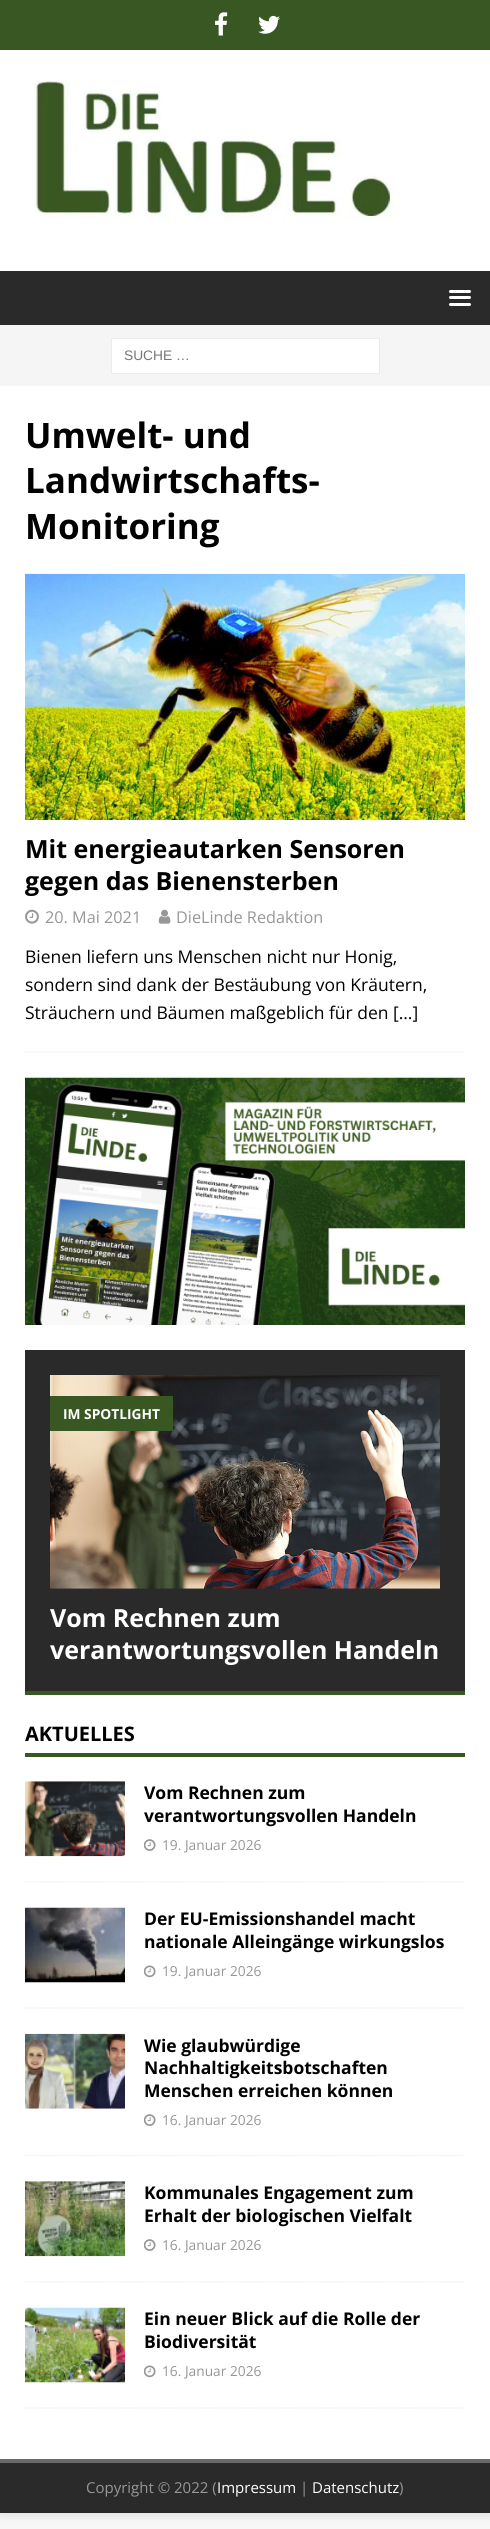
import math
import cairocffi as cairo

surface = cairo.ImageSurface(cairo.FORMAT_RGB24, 490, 2529)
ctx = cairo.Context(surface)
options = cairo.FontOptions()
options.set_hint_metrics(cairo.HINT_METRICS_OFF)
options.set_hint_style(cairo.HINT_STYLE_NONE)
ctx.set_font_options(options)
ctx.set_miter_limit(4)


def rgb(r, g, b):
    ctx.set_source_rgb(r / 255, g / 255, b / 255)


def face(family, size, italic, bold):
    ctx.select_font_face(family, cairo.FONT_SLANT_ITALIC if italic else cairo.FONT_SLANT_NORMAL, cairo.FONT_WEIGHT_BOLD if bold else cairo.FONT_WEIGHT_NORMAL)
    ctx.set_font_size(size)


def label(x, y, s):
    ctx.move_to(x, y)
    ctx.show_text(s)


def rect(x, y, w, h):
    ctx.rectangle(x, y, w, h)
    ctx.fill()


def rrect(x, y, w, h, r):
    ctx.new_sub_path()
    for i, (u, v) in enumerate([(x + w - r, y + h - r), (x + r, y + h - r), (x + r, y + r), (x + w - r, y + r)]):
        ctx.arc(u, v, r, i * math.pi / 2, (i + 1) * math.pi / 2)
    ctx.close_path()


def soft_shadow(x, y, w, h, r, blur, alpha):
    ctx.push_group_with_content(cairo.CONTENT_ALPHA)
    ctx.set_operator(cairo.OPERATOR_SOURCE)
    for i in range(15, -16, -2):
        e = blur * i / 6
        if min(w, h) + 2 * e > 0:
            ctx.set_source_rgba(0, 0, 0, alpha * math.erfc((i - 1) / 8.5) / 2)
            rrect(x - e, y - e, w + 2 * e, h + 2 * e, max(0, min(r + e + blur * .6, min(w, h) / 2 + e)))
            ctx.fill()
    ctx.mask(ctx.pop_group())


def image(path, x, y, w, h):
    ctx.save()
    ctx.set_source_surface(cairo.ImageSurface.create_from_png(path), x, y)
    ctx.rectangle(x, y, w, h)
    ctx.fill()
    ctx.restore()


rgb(247, 247, 247)
ctx.paint()
rgb(50, 50, 50)
soft_shadow(0, 0, 490, 2513, 0, 6, 0.17)
rgb(57, 87, 35)
rect(0, 0, 490, 50)
image('image0.png', 215, 12, 13, 24)
image('image1.png', 258, 15, 22, 19)
rgb(255, 255, 255)
rect(0, 50, 490, 221)
image('image2.png', 34, 80, 359, 141)
rgb(42, 42, 42)
rect(0, 271, 490, 54)
rgb(255, 255, 255)
rrect(449, 290, 22, 3, 1.5)
ctx.fill()
rrect(449, 296, 22, 3, 1.5)
ctx.fill()
rrect(449, 303, 22, 3, 1.5)
ctx.fill()
rgb(245, 245, 245)
rect(0, 325, 490, 61)
rgb(255, 255, 255)
ctx.rectangle(111.5, 338.5, 268, 35)
ctx.fill_preserve()
rgb(235, 235, 235)
ctx.set_line_width(1)
ctx.stroke()
face('Liberation Sans', 13.75, 0, 0)
rgb(117, 117, 117)
label(124, 360, 'SUCHE …')
rgb(255, 255, 255)
rect(0, 386, 490, 2073)
face('Open Sans', 35, 0, 1)
rgb(0, 0, 0)
label(25, 448, 'Umwelt- und')
label(25, 493, 'Landwirtschafts-')
label(25, 539, 'Monitoring')
ctx.new_path()
ctx.move_to(25, 1052)
ctx.line_to(465, 1052)
rgb(235, 235, 235)
ctx.set_line_width(1.2)
ctx.set_dash([1.25, 1.25])
ctx.stroke()
image('image3.png', 25, 573, 440, 247)
face('Open Sans', 25, 0, 1)
rgb(0, 0, 0)
label(25, 858, 'Mit energieautarken Sensoren')
label(25, 890, 'gegen das Bienensterben')
image('image4.png', 25, 909, 14, 15)
face('Open Sans', 16.25, 0, 0)
rgb(151, 151, 151)
label(45, 923, '20. Mai 2021')
image('image5.png', 158, 909, 13, 15)
label(176, 923, 'DieLinde Redaktion')
face('Open Sans', 17.5, 0, 0)
rgb(0, 0, 0)
label(25, 963, 'Bienen liefern uns Menschen nicht nur Honig,')
label(25, 991, 'sondern sind dank der Bestäubung von Kräutern,')
label(25, 1019, 'Sträuchern und Bäumen maßgeblich für den […]')
image('image6.png', 25, 1077, 440, 248)
rgb(42, 42, 42)
rect(25, 1350, 440, 341)
rgb(57, 87, 35)
rect(25, 1691, 440, 4)
image('image7.png', 50, 1375, 390, 214)
rect(50, 1396, 123, 35)
face('Open Sans', 13.75, 0, 1)
rgb(255, 255, 255)
label(63, 1419, 'IM SPOTLIGHT')
face('Open Sans', 25, 0, 1)
label(50, 1627, 'Vom Rechnen zum')
label(50, 1659, 'verantwortungsvollen Handeln')
rgb(57, 87, 35)
rect(25, 1753, 440, 4)
face('Open Sans', 20, 0, 1)
rgb(0, 0, 0)
label(25, 1741, 'AKTUELLES')
ctx.new_path()
ctx.move_to(25, 1882)
ctx.line_to(465, 1882)
rgb(235, 235, 235)
ctx.stroke()
image('image8.png', 25, 1781, 100, 76)
face('Open Sans', 17.5, 0, 1)
rgb(0, 0, 0)
label(144, 1799, 'Vom Rechnen zum')
label(144, 1822, 'verantwortungsvollen Handeln')
image('image9.png', 144, 1839, 12, 12)
face('Open Sans', 13.75, 0, 0)
rgb(151, 151, 151)
label(162, 1850, '19. Januar 2026')
ctx.new_path()
ctx.move_to(25, 2008)
ctx.line_to(465, 2008)
rgb(235, 235, 235)
ctx.stroke()
image('image10.png', 25, 1907, 100, 76)
face('Open Sans', 17.5, 0, 1)
rgb(0, 0, 0)
label(144, 1925, 'Der EU-Emissionshandel macht')
label(144, 1948, 'nationale Alleingänge wirkungslos')
image('image11.png', 144, 1965, 12, 13)
face('Open Sans', 13.75, 0, 0)
rgb(151, 151, 151)
label(162, 1976, '19. Januar 2026')
ctx.new_path()
ctx.move_to(25, 2155.5)
ctx.line_to(465, 2155.5)
rgb(235, 235, 235)
ctx.stroke()
image('image12.png', 25, 2033, 100, 76)
face('Open Sans', 17.5, 0, 1)
rgb(0, 0, 0)
label(144, 2052, 'Wie glaubwürdige')
label(144, 2074, 'Nachhaltigkeitsbotschaften')
label(144, 2097, 'Menschen erreichen können')
image('image9.png', 144, 2114, 12, 12)
face('Open Sans', 13.75, 0, 0)
rgb(151, 151, 151)
label(162, 2125, '16. Januar 2026')
ctx.new_path()
ctx.move_to(25, 2282)
ctx.line_to(465, 2282)
rgb(235, 235, 235)
ctx.stroke()
image('image13.png', 25, 2181, 100, 76)
face('Open Sans', 17.5, 0, 1)
rgb(0, 0, 0)
label(144, 2199, 'Kommunales Engagement zum')
label(144, 2222, 'Erhalt der biologischen Vielfalt')
image('image9.png', 144, 2239, 12, 12)
face('Open Sans', 13.75, 0, 0)
rgb(151, 151, 151)
label(162, 2250, '16. Januar 2026')
ctx.new_path()
ctx.move_to(25, 2408)
ctx.line_to(465, 2408)
rgb(235, 235, 235)
ctx.stroke()
image('image14.png', 25, 2307, 100, 76)
face('Open Sans', 17.5, 0, 1)
rgb(0, 0, 0)
label(144, 2325, 'Ein neuer Blick auf die Rolle der')
label(144, 2348, 'Biodiversität')
image('image11.png', 144, 2365, 12, 13)
face('Open Sans', 13.75, 0, 0)
rgb(151, 151, 151)
label(162, 2376, '16. Januar 2026')
rgb(42, 42, 42)
rect(0, 2463, 490, 50)
rgb(106, 106, 106)
rect(0, 2459, 490, 4)
face('Open Sans', 15, 0, 0)
rgb(151, 151, 151)
label(86, 2493, 'Copyright © 2022 (')
rgb(255, 255, 255)
label(217, 2493, 'Impressum')
rgb(151, 151, 151)
label(300, 2493, '|')
rgb(255, 255, 255)
label(312, 2493, 'Datenschutz')
rgb(151, 151, 151)
label(399, 2493, ')')
surface.write_to_png('render.png')
